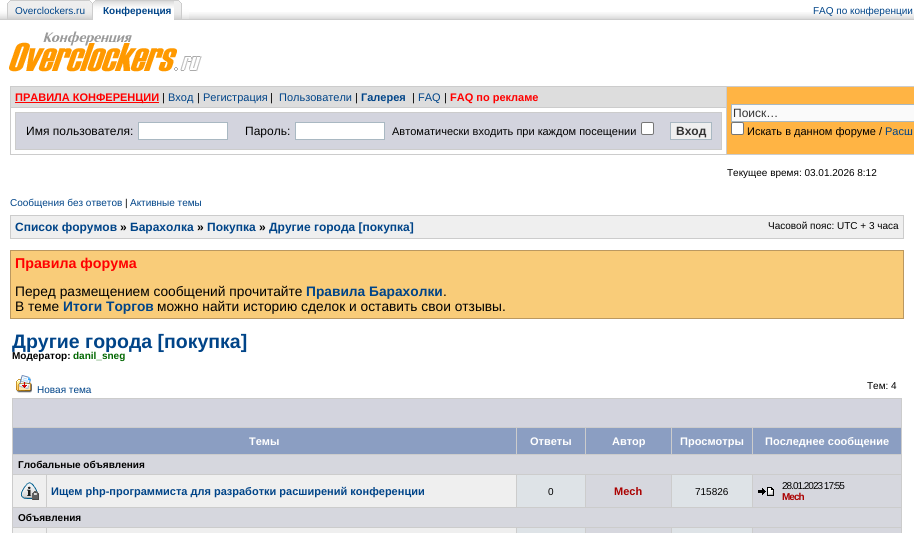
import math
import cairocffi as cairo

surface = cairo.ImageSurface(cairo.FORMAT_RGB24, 914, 533)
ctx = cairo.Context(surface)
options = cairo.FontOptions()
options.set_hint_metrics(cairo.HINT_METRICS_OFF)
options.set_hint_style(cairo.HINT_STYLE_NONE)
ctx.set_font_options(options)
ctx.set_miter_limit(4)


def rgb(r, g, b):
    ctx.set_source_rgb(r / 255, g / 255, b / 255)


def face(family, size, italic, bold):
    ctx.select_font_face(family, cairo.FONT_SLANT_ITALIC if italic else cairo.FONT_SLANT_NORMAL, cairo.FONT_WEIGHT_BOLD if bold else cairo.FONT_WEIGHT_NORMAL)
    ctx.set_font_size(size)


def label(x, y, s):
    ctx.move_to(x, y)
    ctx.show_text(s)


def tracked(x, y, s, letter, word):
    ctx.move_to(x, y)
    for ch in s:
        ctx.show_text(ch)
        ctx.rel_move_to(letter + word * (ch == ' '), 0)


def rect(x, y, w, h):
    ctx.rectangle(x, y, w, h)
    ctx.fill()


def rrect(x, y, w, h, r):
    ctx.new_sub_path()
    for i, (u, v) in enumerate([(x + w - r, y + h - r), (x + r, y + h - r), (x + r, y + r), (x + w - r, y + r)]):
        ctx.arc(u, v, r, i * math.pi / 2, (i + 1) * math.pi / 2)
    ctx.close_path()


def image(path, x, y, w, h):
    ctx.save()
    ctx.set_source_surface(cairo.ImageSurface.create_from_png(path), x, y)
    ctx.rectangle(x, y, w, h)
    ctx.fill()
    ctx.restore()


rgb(255, 255, 255)
ctx.paint()
image('image0.png', 0, 0, 15, 20)
image('image1.png', 15, 0, 70, 20)
face('Liberation Sans', 10, 0, 0)
rgb(0, 68, 136)
label(15, 14, 'Overclockers.ru')
image('image2.png', 85, 0, 15, 20)
image('image3.png', 100, 0, 74, 8)
face('Liberation Sans', 10, 0, 1)
label(103, 14, 'Конференция')
image('image4.png', 174, 0, 15, 20)
image('image5.png', 189, 12, 725, 8)
face('Liberation Sans', 10, 0, 0)
label(813, 14, 'FAQ по конференции')
image('image6.png', 9, 31, 193, 41)
rgb(221, 221, 221)
rect(11, 87, 715, 20)
rgb(204, 204, 204)
rect(10, 86, 904, 1)
rect(10, 154, 904, 1)
rect(10, 86, 1, 69)
rgb(255, 0, 0)
rect(15, 102, 144, 1)
face('Liberation Sans', 11, 0, 1)
label(15, 101, 'ПРАВИЛА КОНФЕРЕНЦИИ')
face('Liberation Sans', 11, 0, 0)
rgb(0, 0, 0)
label(162, 101, '|')
rgb(0, 68, 136)
label(168, 101, 'Вход')
rgb(0, 0, 0)
label(197, 101, '|')
rgb(0, 68, 136)
label(203, 101, 'Регистрация')
rgb(0, 0, 0)
label(270, 101, '|')
rgb(0, 68, 136)
label(279, 101, 'Пользователи')
rgb(0, 0, 0)
label(355, 101, '|')
face('Liberation Sans', 11, 0, 1)
rgb(0, 68, 136)
label(361, 101, 'Галерея')
face('Liberation Sans', 11, 0, 0)
rgb(0, 0, 0)
label(412, 101, '|')
rgb(0, 68, 136)
label(418, 101, 'FAQ')
rgb(0, 0, 0)
label(444, 101, '|')
face('Liberation Sans', 11, 0, 1)
rgb(255, 0, 0)
label(450, 101, 'FAQ по рекламе')
rgb(255, 180, 68)
rect(727, 87, 187, 67)
rgb(204, 204, 204)
rect(10, 107, 717, 1)
rect(726, 86, 1, 69)
rgb(250, 250, 250)
ctx.rectangle(731.5, 104.5, 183, 17)
ctx.fill_preserve()
rgb(169, 184, 194)
ctx.set_line_width(1)
ctx.stroke()
face('Liberation Sans', 12, 0, 0)
rgb(51, 51, 51)
label(733, 117, 'Поиск…')
rgb(255, 255, 255)
rrect(731.5, 122.5, 12, 12, 1.5)
ctx.fill_preserve()
rgb(118, 118, 118)
ctx.stroke()
face('Liberation Sans', 11, 0, 0)
rgb(0, 0, 0)
label(747, 135, 'Искать в данном форуме /')
rgb(0, 68, 136)
label(885, 135, 'Расш')
rgb(211, 212, 222)
ctx.rectangle(15.5, 112.5, 706, 37)
ctx.fill_preserve()
rgb(204, 204, 204)
ctx.stroke()
face('Liberation Sans', 12, 0, 0)
rgb(0, 0, 0)
label(26, 135, 'Имя пользователя:')
rgb(255, 255, 255)
ctx.rectangle(138.5, 122.5, 89, 17)
ctx.fill_preserve()
rgb(169, 184, 194)
ctx.stroke()
rgb(0, 0, 0)
label(245, 135, 'Пароль:')
rgb(255, 255, 255)
ctx.rectangle(295.5, 122.5, 89, 17)
ctx.fill_preserve()
rgb(169, 184, 194)
ctx.stroke()
face('Liberation Sans', 11, 0, 0)
rgb(0, 0, 0)
label(392, 135, 'Автоматически входить при каждом посещении')
rgb(255, 255, 255)
rrect(641.5, 122.5, 12, 12, 1.5)
ctx.fill_preserve()
rgb(118, 118, 118)
ctx.stroke()
rgb(239, 239, 239)
ctx.rectangle(670.5, 122.5, 41, 17)
ctx.fill_preserve()
rgb(169, 184, 194)
ctx.stroke()
face('Liberation Sans', 12, 0, 1)
rgb(51, 51, 51)
label(676, 135, 'Вход')
face('Liberation Sans', 10, 0, 0)
rgb(0, 0, 0)
label(727, 176, 'Текущее время: 03.01.2026 8:12')
rgb(0, 68, 136)
label(10, 206, 'Сообщения без ответов')
rgb(0, 0, 0)
label(125, 206, '|')
rgb(0, 68, 136)
label(130, 206, 'Активные темы')
rgb(204, 204, 204)
rect(10, 215, 894, 24)
rgb(239, 239, 239)
rect(11, 216, 892, 22)
face('Liberation Sans', 12, 0, 1)
rgb(0, 68, 136)
label(15, 231, 'Список форумов')
rgb(0, 0, 0)
label(120, 231, '»')
rgb(0, 68, 136)
label(130, 231, 'Барахолка')
rgb(0, 0, 0)
label(197, 231, '»')
rgb(0, 68, 136)
label(207, 231, 'Покупка')
rgb(0, 0, 0)
label(259, 231, '»')
rgb(0, 68, 136)
label(269, 231, 'Другие города [покупка]')
face('Liberation Sans', 10, 0, 0)
rgb(0, 0, 0)
label(768, 229, 'Часовой пояс: UTC + 3 часа')
rgb(249, 204, 121)
ctx.rectangle(10.5, 250.5, 893, 68)
ctx.fill_preserve()
rgb(187, 152, 96)
ctx.stroke()
face('Liberation Sans', 14.25, 0, 1)
rgb(255, 0, 0)
label(15, 268, 'Правила форума')
face('Liberation Sans', 13.75, 0, 0)
rgb(0, 0, 0)
label(15, 296, 'Перед размещением сообщений прочитайте')
face('Liberation Sans', 13.75, 0, 1)
rgb(0, 68, 136)
label(306, 296, 'Правила Барахолки')
face('Liberation Sans', 13.75, 0, 0)
rgb(0, 0, 0)
label(443, 296, '.')
label(15, 311, 'В теме')
face('Liberation Sans', 13.75, 0, 1)
rgb(0, 68, 136)
label(63, 311, 'Итоги Торгов')
face('Liberation Sans', 13.75, 0, 0)
rgb(0, 0, 0)
label(157, 311, 'можно найти историю сделок и оставить свои отзывы.')
face('Liberation Sans', 19.5, 0, 1)
rgb(0, 68, 136)
label(12, 348, 'Другие города [покупка]')
face('Liberation Sans', 10, 0, 1)
rgb(0, 0, 0)
label(12, 359, 'Модератор:')
rgb(0, 102, 0)
label(73, 359, 'danil_sneg')
image('image7.png', 16, 375, 16, 18)
face('Liberation Sans', 10, 0, 0)
rgb(0, 68, 136)
label(37, 393, 'Новая тема')
rgb(0, 0, 0)
label(867, 389, 'Тем: 4')
rgb(204, 204, 204)
rect(12, 398, 890, 135)
rgb(211, 212, 222)
rect(13, 399, 888, 28)
rgb(139, 158, 194)
rect(13, 428, 503, 26)
face('Liberation Sans', 11, 0, 1)
rgb(255, 255, 255)
label(249, 445, 'Темы')
rgb(139, 158, 194)
rect(517, 428, 68, 26)
rgb(255, 255, 255)
label(530, 445, 'Ответы')
rgb(139, 158, 194)
rect(586, 428, 85, 26)
rgb(255, 255, 255)
label(612, 445, 'Автор')
rgb(139, 158, 194)
rect(672, 428, 80, 26)
rgb(255, 255, 255)
label(680, 445, 'Просмотры')
rgb(139, 158, 194)
rect(753, 428, 148, 26)
rgb(255, 255, 255)
label(765, 445, 'Последнее сообщение')
rgb(214, 215, 222)
rect(13, 455, 888, 19)
face('Liberation Sans', 10, 0, 1)
rgb(0, 0, 0)
label(18, 468, 'Глобальные объявления')
rgb(239, 239, 239)
rect(13, 475, 33, 32)
image('image8.png', 20, 482, 19, 18)
rect(47, 475, 469, 32)
face('Liberation Sans', 11, 0, 1)
rgb(0, 68, 136)
label(51, 495, 'Ищем php-программиста для разработки расширений конференции')
rgb(222, 227, 231)
rect(517, 475, 68, 32)
face('Liberation Sans', 10, 0, 0)
rgb(0, 0, 0)
label(548, 495, '0')
rgb(214, 215, 222)
rect(586, 475, 85, 32)
face('Liberation Sans', 11, 0, 1)
rgb(170, 0, 0)
label(614, 495, 'Mech')
rgb(222, 227, 231)
rect(672, 475, 80, 32)
face('Liberation Sans', 10, 0, 0)
rgb(0, 0, 0)
label(695, 495, '715826')
rgb(214, 215, 222)
rect(753, 475, 148, 32)
rgb(0, 0, 0)
tracked(782, 489, '28.01.2023 17:55', -1, 0)
image('image9.png', 758, 487, 16, 9)
face('Liberation Sans', 10, 0, 1)
rgb(170, 0, 0)
tracked(782, 500, 'Mech', -1, 0)
rgb(214, 215, 222)
rect(13, 508, 888, 19)
rgb(0, 0, 0)
label(18, 521, 'Объявления')
rgb(239, 239, 239)
rect(13, 528, 33, 5)
rect(47, 528, 469, 5)
rgb(222, 227, 231)
rect(517, 528, 68, 5)
rgb(214, 215, 222)
rect(586, 528, 85, 5)
rgb(222, 227, 231)
rect(672, 528, 80, 5)
rgb(214, 215, 222)
rect(753, 528, 148, 5)
surface.write_to_png('render.png')
